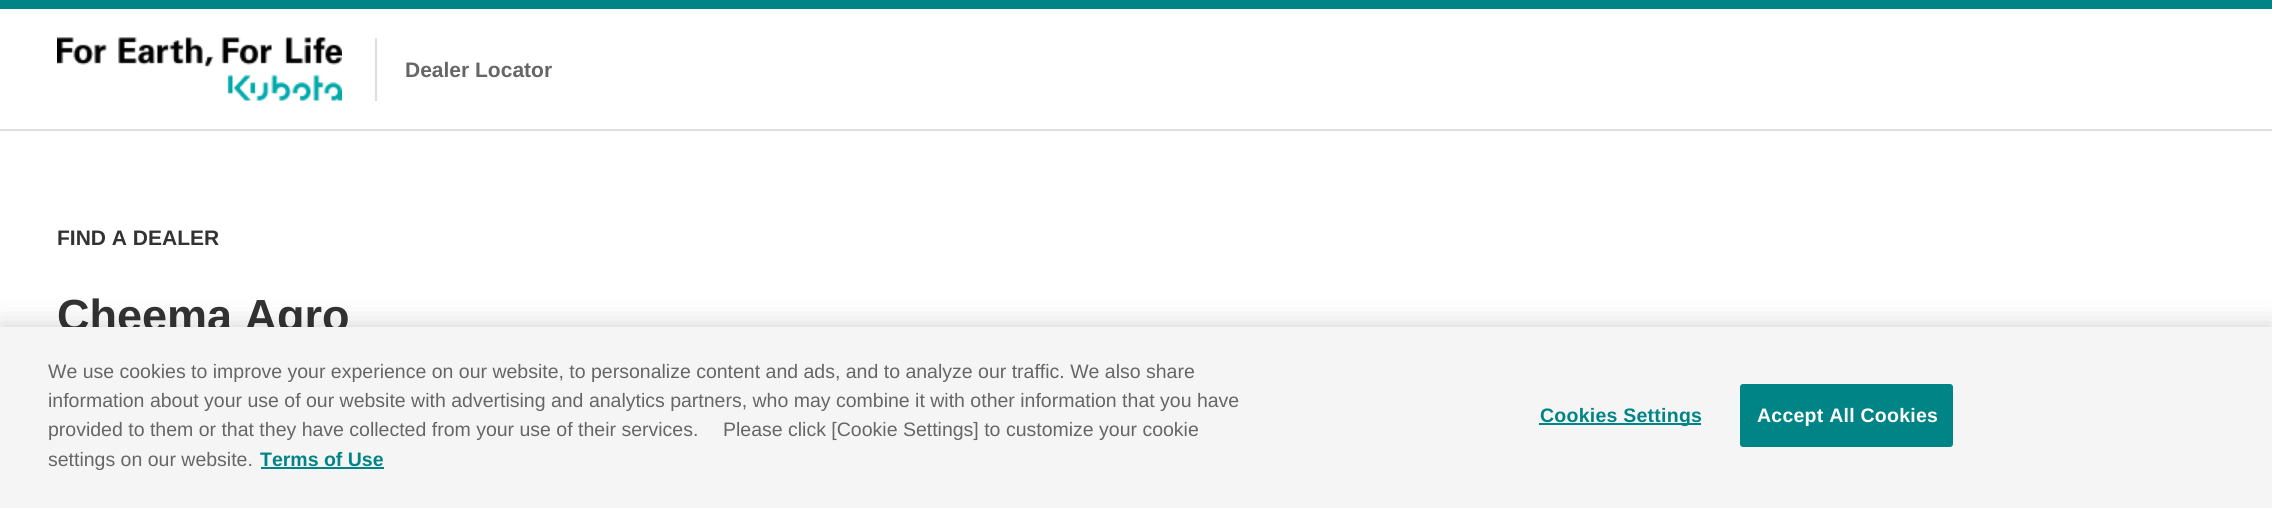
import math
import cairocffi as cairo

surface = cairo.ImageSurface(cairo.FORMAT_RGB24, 2272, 508)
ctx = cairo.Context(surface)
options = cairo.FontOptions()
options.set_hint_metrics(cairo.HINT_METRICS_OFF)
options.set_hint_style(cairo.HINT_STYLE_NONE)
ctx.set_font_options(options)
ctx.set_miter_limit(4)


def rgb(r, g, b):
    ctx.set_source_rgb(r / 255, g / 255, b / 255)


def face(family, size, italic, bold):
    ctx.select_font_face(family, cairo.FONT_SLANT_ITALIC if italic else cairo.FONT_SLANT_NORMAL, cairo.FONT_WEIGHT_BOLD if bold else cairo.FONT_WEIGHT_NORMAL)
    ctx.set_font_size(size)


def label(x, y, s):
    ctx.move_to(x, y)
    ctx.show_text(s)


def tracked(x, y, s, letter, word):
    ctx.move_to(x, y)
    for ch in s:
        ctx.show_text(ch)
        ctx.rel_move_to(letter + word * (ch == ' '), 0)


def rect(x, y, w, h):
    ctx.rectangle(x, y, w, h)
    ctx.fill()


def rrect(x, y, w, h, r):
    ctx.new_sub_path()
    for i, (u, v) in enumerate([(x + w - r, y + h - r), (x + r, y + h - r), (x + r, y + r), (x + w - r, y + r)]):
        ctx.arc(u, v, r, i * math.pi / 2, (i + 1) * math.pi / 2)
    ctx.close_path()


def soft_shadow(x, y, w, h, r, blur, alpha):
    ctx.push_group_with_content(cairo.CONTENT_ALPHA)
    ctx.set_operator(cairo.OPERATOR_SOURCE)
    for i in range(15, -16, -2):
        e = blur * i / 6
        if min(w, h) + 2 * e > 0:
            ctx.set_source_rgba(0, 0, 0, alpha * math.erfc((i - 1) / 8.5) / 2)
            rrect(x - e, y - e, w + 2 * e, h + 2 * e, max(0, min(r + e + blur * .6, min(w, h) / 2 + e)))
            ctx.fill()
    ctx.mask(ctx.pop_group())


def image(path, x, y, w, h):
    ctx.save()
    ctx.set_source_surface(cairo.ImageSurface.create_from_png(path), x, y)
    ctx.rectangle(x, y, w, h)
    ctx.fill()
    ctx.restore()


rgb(255, 255, 255)
ctx.paint()
rgb(222, 222, 222)
rect(0, 129, 2272, 2)
rgb(0, 132, 134)
rect(0, 0, 2272, 9)
rgb(222, 222, 222)
rect(375, 38, 2, 63)
image('image0.png', 57, 37, 285, 64)
face('Liberation Sans', 21, 0, 1)
rgb(102, 102, 102)
label(405, 77, 'Dealer Locator')
rgb(51, 51, 51)
label(57, 245, 'FIND A DEALER')
face('Liberation Sans', 45, 0, 1)
label(57, 331, 'Cheema Agro')
rgb(0, 0, 0)
soft_shadow(0, 327, 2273, 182, 0, 13.5, 0.2)
rgb(245, 245, 245)
rect(0, 327, 2272, 181)
face('Liberation Sans', 19.5, 0, 0)
rgb(102, 102, 102)
label(48, 378, 'We use cookies to improve your experience on our website, to personalize content and ads, and to analyze our traffic. We also share')
label(48, 407, 'information about your use of our website with advertising and analytics partners, who may combine it with other information that you have')
label(48, 436, 'provided to them or that they have collected from your use of their services.')
label(723, 436, 'Please click [Cookie Settings] to customize your cookie')
label(48, 466, 'settings on our website.')
face('Liberation Sans', 19.5, 0, 1)
rgb(0, 132, 134)
label(260, 466, 'Terms of Use')
rect(261, 467, 123, 2)
rect(1539, 423, 162, 2)
tracked(1540, 422, 'Cookies Settings', 0.25, 0)
rrect(1741, 385, 211, 61, 2)
ctx.fill_preserve()
ctx.stroke()
rgb(255, 255, 255)
tracked(1757, 422, 'Accept All Cookies', 0.25, 0)
surface.write_to_png('render.png')
